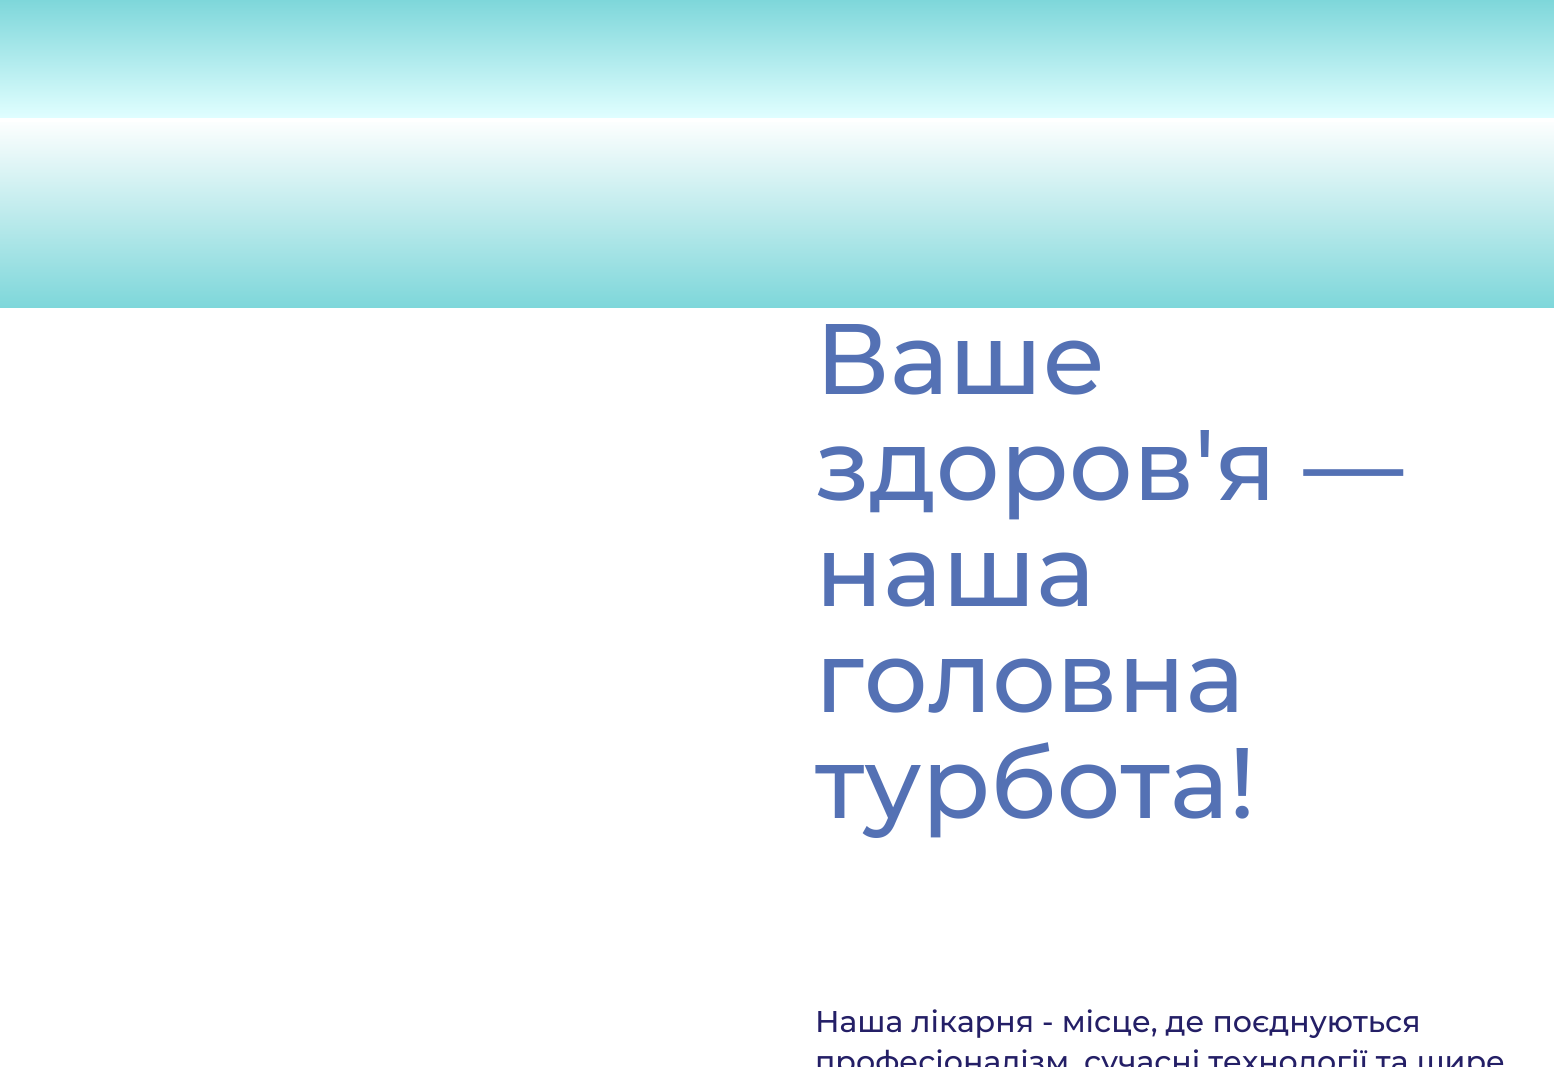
import math
import cairocffi as cairo

surface = cairo.ImageSurface(cairo.FORMAT_RGB24, 1554, 1067)
ctx = cairo.Context(surface)
options = cairo.FontOptions()
options.set_hint_metrics(cairo.HINT_METRICS_OFF)
options.set_hint_style(cairo.HINT_STYLE_NONE)
ctx.set_font_options(options)
ctx.set_miter_limit(4)


def rgb(r, g, b):
    ctx.set_source_rgb(r / 255, g / 255, b / 255)


def face(family, size, italic, bold):
    ctx.select_font_face(family, cairo.FONT_SLANT_ITALIC if italic else cairo.FONT_SLANT_NORMAL, cairo.FONT_WEIGHT_BOLD if bold else cairo.FONT_WEIGHT_NORMAL)
    ctx.set_font_size(size)


def label(x, y, s):
    ctx.move_to(x, y)
    ctx.show_text(s)


def rect(x, y, w, h):
    ctx.rectangle(x, y, w, h)
    ctx.fill()


rgb(255, 255, 255)
ctx.paint()
gradient = cairo.LinearGradient(778, 118, 778, 0)
gradient.add_color_stop_rgba(0, 0.878, 0.996, 1, 1)
gradient.add_color_stop_rgba(1, 0.494, 0.843, 0.855, 1)
ctx.set_source(gradient)
rect(0, 0, 1554, 118)
gradient = cairo.LinearGradient(778, 308, 778, 118)
gradient.add_color_stop_rgba(0, 0.494, 0.843, 0.855, 1)
gradient.add_color_stop_rgba(1, 1, 1, 1, 1)
ctx.set_source(gradient)
rect(0, 122, 1554, 186)
face('Montserrat Medium', 100, 0, 0)
rgb(84, 113, 180)
label(815, 394, 'Ваше')
label(815, 500, 'здоров\'я —')
label(815, 606, 'наша')
label(815, 712, 'головна')
label(815, 818, 'турбота!')
face('Montserrat Medium', 30, 0, 0)
rgb(36, 31, 102)
label(815, 1032, 'Наша лікарня - місце, де поєднуються')
label(815, 1072, 'професіоналізм, сучасні технології та щире')
surface.write_to_png('render.png')
